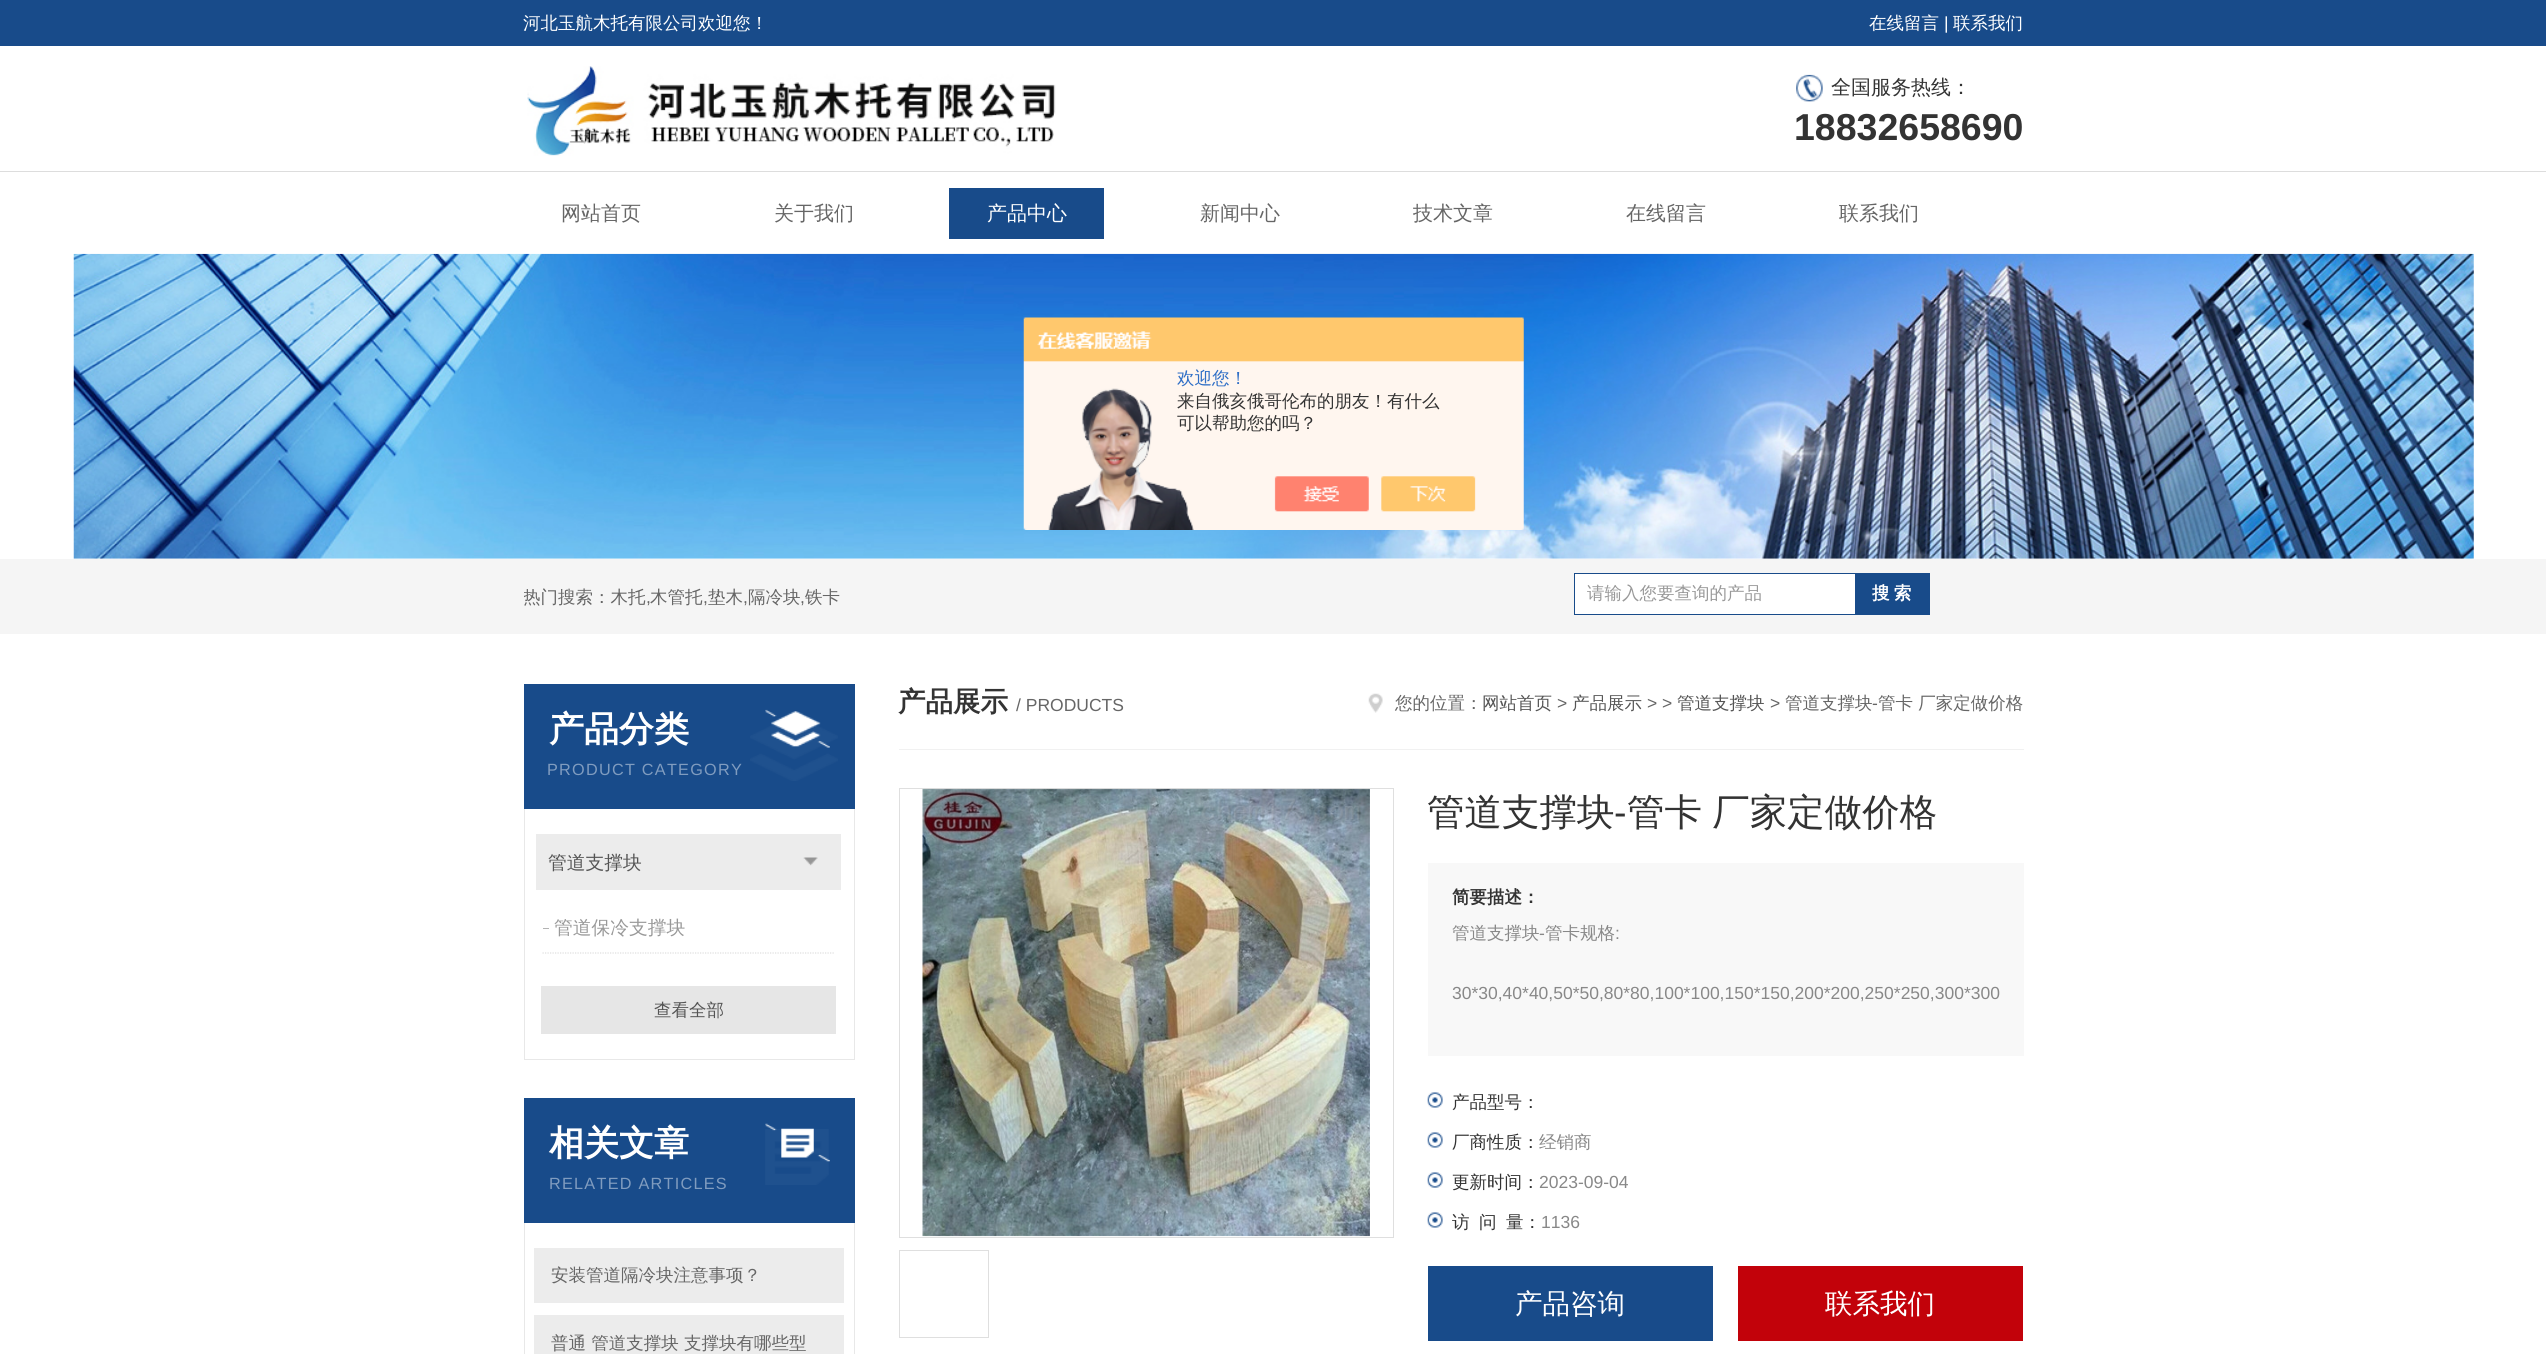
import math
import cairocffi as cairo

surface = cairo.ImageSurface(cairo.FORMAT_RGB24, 2546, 1354)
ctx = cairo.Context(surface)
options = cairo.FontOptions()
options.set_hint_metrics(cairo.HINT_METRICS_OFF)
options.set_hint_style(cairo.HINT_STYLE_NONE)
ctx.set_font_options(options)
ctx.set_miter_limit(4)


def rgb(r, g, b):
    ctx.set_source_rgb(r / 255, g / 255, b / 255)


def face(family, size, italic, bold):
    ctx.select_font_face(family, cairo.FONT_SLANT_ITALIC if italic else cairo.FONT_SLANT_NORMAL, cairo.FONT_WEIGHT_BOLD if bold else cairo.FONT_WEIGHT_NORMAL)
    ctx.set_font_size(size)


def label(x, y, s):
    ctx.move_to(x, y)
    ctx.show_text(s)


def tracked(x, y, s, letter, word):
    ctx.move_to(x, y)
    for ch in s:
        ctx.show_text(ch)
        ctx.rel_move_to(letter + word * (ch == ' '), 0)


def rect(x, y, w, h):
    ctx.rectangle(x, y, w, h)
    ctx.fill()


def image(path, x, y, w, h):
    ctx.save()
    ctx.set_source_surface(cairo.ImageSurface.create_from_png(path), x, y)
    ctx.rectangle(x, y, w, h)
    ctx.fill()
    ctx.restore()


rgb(255, 255, 255)
ctx.paint()
rgb(24, 75, 138)
rect(0, 0, 2546, 46)
face('WenQuanYi Zen Hei Medium', 17.5, 0, 0)
rgb(255, 255, 255)
label(523, 29, '河北玉航木托有限公司欢迎您！')
label(1869, 29, '在线留言')
face('Liberation Sans', 17.5, 0, 0)
label(1944, 29, '|')
face('WenQuanYi Zen Hei Medium', 17.5, 0, 0)
label(1953, 29, '联系我们')
image('image0.png', 527, 66, 529, 90)
image('image1.png', 1796, 74, 27, 28)
face('WenQuanYi Zen Hei Medium', 20, 0, 0)
rgb(51, 51, 51)
label(1831, 94, '全国服务热线：')
face('Liberation Sans', 37.5, 0, 1)
label(1794, 140, '18832658690')
rgb(221, 221, 221)
rect(0, 171, 2546, 1)
face('WenQuanYi Zen Hei Medium', 20, 0, 0)
rgb(102, 102, 102)
label(561, 220, '网站首页')
label(774, 220, '关于我们')
rgb(24, 75, 138)
rect(949, 188, 155, 51)
rgb(255, 255, 255)
label(987, 220, '产品中心')
rgb(102, 102, 102)
label(1200, 220, '新闻中心')
label(1413, 220, '技术文章')
label(1626, 220, '在线留言')
label(1839, 220, '联系我们')
image('image2.png', 73, 253, 2401, 306)
image('image3.png', 1023, 317, 501, 213)
face('WenQuanYi Zen Hei Medium', 17.5, 0, 0)
rgb(46, 110, 198)
label(1177, 384, '欢迎您！')
rgb(51, 51, 51)
label(1177, 407, '来自俄亥俄哥伦布的朋友！有什么')
label(1177, 429, '可以帮助您的吗？')
rgb(245, 245, 245)
rect(0, 559, 2546, 75)
ctx.save()
ctx.rectangle(524, 559, 1050, 75)
ctx.clip()
rgb(102, 102, 102)
label(523, 603, '热门搜索：木托')
ctx.restore()
face('Liberation Sans', 17.5, 0, 0)
rgb(102, 102, 102)
label(646, 603, ',')
face('WenQuanYi Zen Hei Medium', 17.5, 0, 0)
label(650, 603, '木管托')
face('Liberation Sans', 17.5, 0, 0)
label(703, 603, ',')
face('WenQuanYi Zen Hei Medium', 17.5, 0, 0)
label(708, 603, '垫木')
face('Liberation Sans', 17.5, 0, 0)
label(743, 603, ',')
face('WenQuanYi Zen Hei Medium', 17.5, 0, 0)
label(748, 603, '隔冷块')
face('Liberation Sans', 17.5, 0, 0)
label(800, 603, ',')
face('WenQuanYi Zen Hei Medium', 17.5, 0, 0)
label(805, 603, '铁卡')
rgb(255, 255, 255)
rect(1575, 574, 280, 40)
rgb(24, 75, 138)
rect(1574, 573, 281, 1)
rect(1574, 614, 281, 1)
rect(1574, 573, 1, 42)
rgb(153, 153, 153)
label(1587, 599, '请输入您要查询的产品')
rgb(24, 75, 138)
rect(1855, 573, 75, 42)
face('WenQuanYi Zen Hei', 17.5, 0, 1)
rgb(255, 255, 255)
tracked(1872, 599, '搜 索', 0, -1)
rgb(24, 75, 138)
rect(524, 684, 331, 125)
image('image4.png', 750, 724, 88, 57)
image('image5.png', 765, 709, 65, 39)
face('WenQuanYi Zen Hei', 35, 0, 1)
rgb(255, 255, 255)
label(549, 741, '产品分类')
face('Liberation Sans', 16.25, 0, 0)
rgb(128, 156, 191)
tracked(547, 775, 'PRODUCT CATEGORY', 1.25, 0)
rgb(232, 232, 232)
rect(854, 809, 1, 251)
rect(524, 1059, 331, 1)
rect(524, 809, 1, 251)
rgb(236, 236, 236)
rect(536, 834, 305, 56)
face('WenQuanYi Zen Hei Medium', 18.75, 0, 0)
rgb(85, 85, 85)
label(548, 869, '管道支撑块')
image('image6.png', 803, 857, 15, 9)
ctx.new_path()
ctx.move_to(542.5, 953)
ctx.line_to(835, 953)
rgb(222, 222, 222)
ctx.set_line_width(1.2)
ctx.set_dash([1.25, 1.25])
ctx.stroke()
rgb(179, 179, 179)
rect(543, 928, 6, 1)
rgb(153, 153, 153)
label(554, 934, '管道保冷支撑块')
rgb(230, 230, 230)
rect(541, 986, 295, 48)
face('WenQuanYi Zen Hei Medium', 17.5, 0, 0)
rgb(85, 85, 85)
label(654, 1016, '查看全部')
rgb(24, 75, 138)
rect(524, 1098, 331, 125)
image('image7.png', 765, 1129, 64, 56)
image('image8.png', 765, 1123, 65, 39)
face('WenQuanYi Zen Hei', 35, 0, 1)
rgb(255, 255, 255)
label(549, 1155, '相关文章')
face('Liberation Sans', 16.25, 0, 0)
rgb(128, 156, 191)
tracked(549, 1189, 'RELATED ARTICLES', 1.25, 0)
rgb(232, 232, 232)
rect(854, 1223, 1, 131)
rect(524, 1223, 1, 131)
rgb(236, 236, 236)
rect(534, 1248, 310, 55)
face('WenQuanYi Zen Hei Medium', 17.5, 0, 0)
rgb(102, 102, 102)
label(551, 1281, '安装管道隔冷块注意事项？')
rgb(236, 236, 236)
rect(534, 1315, 310, 39)
rgb(102, 102, 102)
label(551, 1349, '普通 管道支撑块 支撑块有哪些型')
rgb(241, 241, 241)
rect(899, 749, 1125, 1)
face('WenQuanYi Zen Hei', 27.5, 0, 1)
rgb(51, 51, 51)
label(898, 711, '产品展示')
face('Liberation Sans', 17.5, 0, 0)
rgb(102, 102, 102)
label(1016, 711, '/ PRODUCTS')
image('image9.png', 1368, 693, 15, 20)
face('WenQuanYi Zen Hei Medium', 17.5, 0, 0)
label(1395, 709, '您的位置：')
rgb(85, 85, 85)
label(1482, 709, '网站首页')
face('Liberation Sans', 17.5, 0, 0)
rgb(102, 102, 102)
label(1557, 709, '>')
face('WenQuanYi Zen Hei Medium', 17.5, 0, 0)
rgb(85, 85, 85)
label(1572, 709, '产品展示')
face('Liberation Sans', 17.5, 0, 0)
rgb(102, 102, 102)
label(1647, 709, '> >')
face('WenQuanYi Zen Hei Medium', 17.5, 0, 0)
rgb(85, 85, 85)
label(1677, 709, '管道支撑块')
face('Liberation Sans', 17.5, 0, 0)
rgb(102, 102, 102)
label(1770, 709, '>')
face('WenQuanYi Zen Hei Medium', 17.5, 0, 0)
label(1785, 709, '管道支撑块')
face('Liberation Sans', 17.5, 0, 0)
label(1872, 709, '-')
face('WenQuanYi Zen Hei Medium', 17.5, 0, 0)
label(1878, 709, '管卡 厂家定做价格')
ctx.rectangle(899.5, 788.5, 494, 449)
rgb(223, 223, 223)
ctx.set_line_width(1)
ctx.set_dash([])
ctx.stroke()
image('image10.png', 922, 788, 448, 449)
ctx.rectangle(899.5, 1250.5, 89, 87)
ctx.stroke()
face('WenQuanYi Zen Hei Medium', 37.5, 0, 0)
rgb(51, 51, 51)
label(1427, 825, '管道支撑块')
face('Liberation Sans', 37.5, 0, 0)
label(1614, 825, '-')
face('WenQuanYi Zen Hei Medium', 37.5, 0, 0)
tracked(1627, 825, '管卡 厂家定做价格', 0, -1)
rgb(248, 248, 248)
rect(1428, 863, 596, 193)
face('WenQuanYi Zen Hei', 17.5, 0, 1)
rgb(51, 51, 51)
label(1452, 903, '简要描述：')
face('WenQuanYi Zen Hei Medium', 17.5, 0, 0)
rgb(136, 136, 136)
label(1452, 939, '管道支撑块')
face('Liberation Sans', 17.5, 0, 0)
label(1539, 939, '-')
face('WenQuanYi Zen Hei Medium', 17.5, 0, 0)
label(1545, 939, '管卡规格')
face('Liberation Sans', 17.5, 0, 0)
label(1615, 939, ':')
label(1452, 999, '30*30,40*40,50*50,80*80,100*100,150*150,200*200,250*250,300*300')
image('image11.png', 1427, 1092, 16, 16)
face('WenQuanYi Zen Hei Medium', 17.5, 0, 0)
rgb(51, 51, 51)
label(1452, 1108, '产品型号：')
image('image11.png', 1427, 1132, 16, 16)
label(1452, 1148, '厂商性质：')
rgb(136, 136, 136)
label(1539, 1148, '经销商')
image('image12.png', 1427, 1172, 16, 16)
rgb(51, 51, 51)
label(1452, 1188, '更新时间：')
face('Liberation Sans', 17.5, 0, 0)
rgb(136, 136, 136)
label(1539, 1188, '2023-09-04')
image('image11.png', 1427, 1212, 16, 16)
face('WenQuanYi Zen Hei Medium', 17.5, 0, 0)
rgb(51, 51, 51)
label(1452, 1228, '访')
label(1479, 1228, '问')
label(1506, 1228, '量：')
face('Liberation Sans', 17.5, 0, 0)
rgb(136, 136, 136)
label(1541, 1228, '1136')
rgb(24, 75, 138)
rect(1428, 1266, 285, 75)
face('WenQuanYi Zen Hei Medium', 27.5, 0, 0)
rgb(255, 255, 255)
label(1515, 1313, '产品咨询')
rgb(194, 2, 10)
rect(1738, 1266, 285, 75)
rgb(255, 255, 255)
label(1825, 1313, '联系我们')
surface.write_to_png('render.png')
